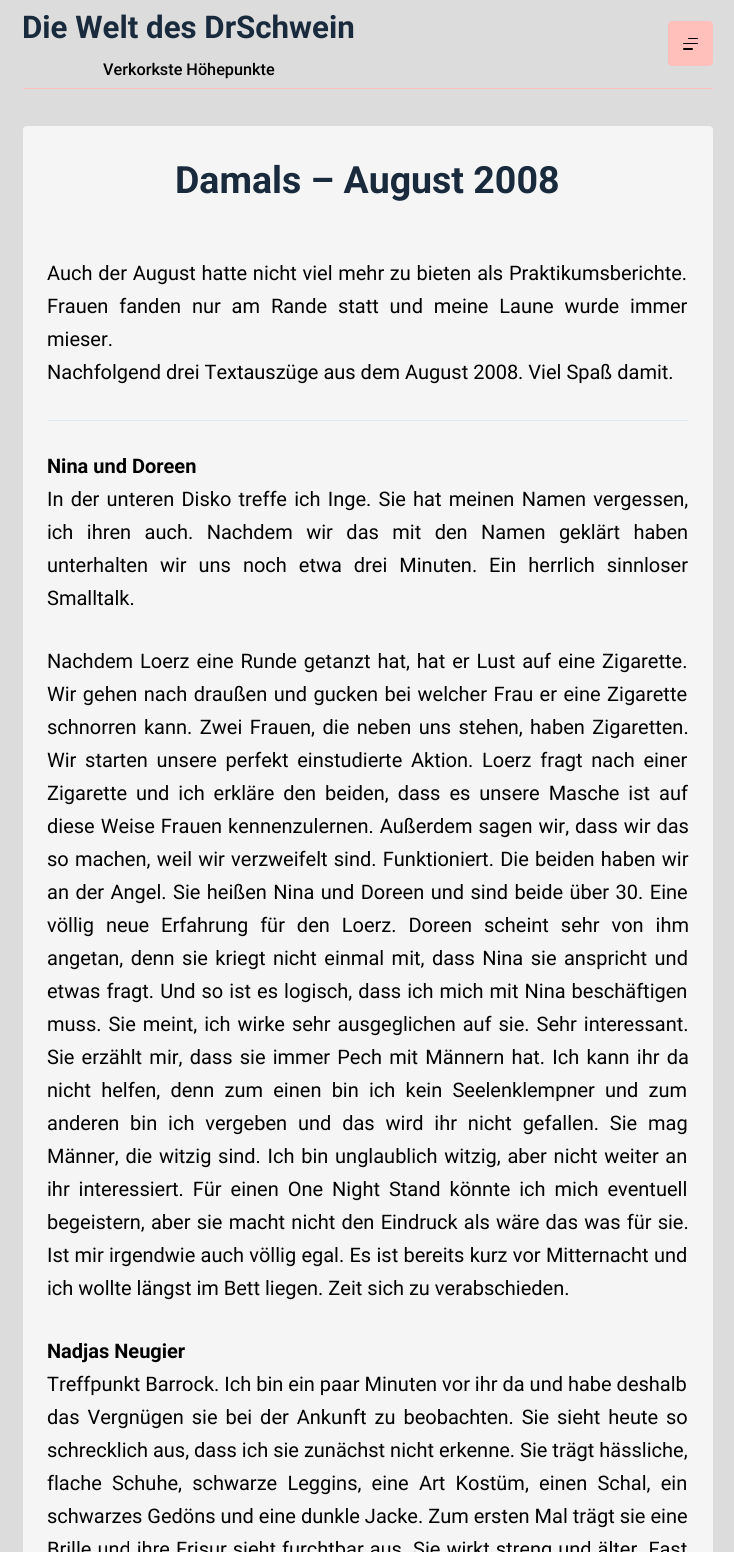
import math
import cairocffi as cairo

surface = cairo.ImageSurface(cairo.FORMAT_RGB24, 734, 1552)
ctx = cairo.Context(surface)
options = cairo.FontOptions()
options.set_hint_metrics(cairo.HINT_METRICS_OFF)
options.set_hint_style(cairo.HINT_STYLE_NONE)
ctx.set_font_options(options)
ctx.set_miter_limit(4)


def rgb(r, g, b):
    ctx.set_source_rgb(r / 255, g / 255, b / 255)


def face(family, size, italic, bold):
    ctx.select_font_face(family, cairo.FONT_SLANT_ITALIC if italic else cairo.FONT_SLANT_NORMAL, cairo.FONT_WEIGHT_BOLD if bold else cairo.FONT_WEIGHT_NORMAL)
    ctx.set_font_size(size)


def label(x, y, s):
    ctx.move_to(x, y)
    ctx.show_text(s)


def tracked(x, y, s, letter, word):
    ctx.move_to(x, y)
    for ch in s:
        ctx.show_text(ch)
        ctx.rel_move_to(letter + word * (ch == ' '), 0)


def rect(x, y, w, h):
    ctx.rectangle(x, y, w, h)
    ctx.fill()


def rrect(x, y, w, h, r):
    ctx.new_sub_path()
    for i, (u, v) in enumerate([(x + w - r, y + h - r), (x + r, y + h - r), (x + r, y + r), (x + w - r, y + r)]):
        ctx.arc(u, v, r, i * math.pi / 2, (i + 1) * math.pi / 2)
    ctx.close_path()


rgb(220, 220, 220)
ctx.paint()
rgb(255, 192, 188)
rect(23, 88, 690, 1)
face('Roboto', 31.25, 0, 1)
rgb(25, 42, 61)
label(22, 38, 'Die Welt des DrSchwein')
face('Roboto Medium', 16.25, 0, 0)
rgb(0, 0, 0)
label(103, 75, 'Verkorkste Höhepunkte')
rgb(255, 192, 188)
rrect(668, 21, 45, 45, 4)
ctx.fill()
rgb(0, 0, 0)
rrect(688, 38, 10, 1, 0.5)
ctx.fill()
rrect(683, 43, 15, 1, 0.5)
ctx.fill()
rrect(683, 48, 10, 2, 1)
ctx.fill()
rgb(245, 245, 245)
rrect(23, 126, 690, 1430, 4)
ctx.fill()
face('Roboto', 37.5, 0, 1)
rgb(25, 42, 61)
label(175, 193, 'Damals – August 2008')
face('Roboto', 20, 0, 0)
rgb(0, 0, 0)
tracked(47, 280, 'Auch der August hatte nicht viel mehr zu bieten als Praktikumsberichte.', 0, 0.75)
tracked(47, 313, 'Frauen fanden nur am Rande statt und meine Laune wurde immer', 0, 5.9)
label(47, 346, 'mieser.')
label(47, 379, 'Nachfolgend drei Textauszüge aus dem August 2008. Viel Spaß damit.')
rgb(225, 232, 237)
rect(48, 420, 640, 1)
face('Roboto', 20, 0, 1)
rgb(0, 0, 0)
label(47, 473, 'Nina und Doreen')
face('Roboto', 20, 0, 0)
tracked(47, 506, 'In der unteren Disko treffe ich Inge. Sie hat meinen Namen vergessen,', 0, 2.25)
tracked(47, 539, 'ich ihren auch. Nachdem wir das mit den Namen geklärt haben', 0, 8.5)
tracked(47, 572, 'unterhalten wir uns noch etwa drei Minuten. Ein herrlich sinnloser', 0, 7)
label(47, 605, 'Smalltalk.')
tracked(47, 668, 'Nachdem Loerz eine Runde getanzt hat, hat er Lust auf eine Zigarette.', 0, 2)
tracked(47, 701, 'Wir gehen nach draußen und gucken bei welcher Frau er eine Zigarette', 0, 1.5)
tracked(47, 734, 'schnorren kann. Zwei Frauen, die neben uns stehen, haben Zigaretten.', 0, 2.5)
tracked(47, 767, 'Wir starten unsere perfekt einstudierte Aktion. Loerz fragt nach einer', 0, 3.75)
tracked(47, 800, 'Zigarette und ich erkläre den beiden, dass es unsere Masche ist auf', 0, 4)
tracked(47, 833, 'diese Weise Frauen kennenzulernen. Außerdem sagen wir, dass wir das', 0, 1)
tracked(47, 866, 'so machen, weil wir verzweifelt sind. Funktioniert. Die beiden haben wir', 0, 1.25)
tracked(47, 899, 'an der Angel. Sie heißen Nina und Doreen und sind beide über 30. Eine', 0, 1.5)
tracked(47, 932, 'völlig neue Erfahrung für den Loerz. Doreen scheint sehr von ihm', 0, 7)
tracked(47, 965, 'angetan, denn sie kriegt nicht einmal mit, dass Nina sie anspricht und', 0, 2.5)
tracked(47, 998, 'etwas fragt. Und so ist es logisch, dass ich mich mit Nina beschäftigen', 0, 1.1)
tracked(47, 1031, 'muss. Sie meint, ich wirke sehr ausgeglichen auf sie. Sehr interessant.', 0, 2)
tracked(47, 1064, 'Sie erzählt mir, dass sie immer Pech mit Männern hat. Ich kann ihr da', 0, 2.25)
tracked(47, 1097, 'nicht helfen, denn zum einen bin ich kein Seelenklempner und zum', 0, 5.25)
tracked(47, 1130, 'anderen bin ich vergeben und das wird ihr nicht gefallen. Sie mag', 0, 5.9)
tracked(47, 1163, 'Männer, die witzig sind. Ich bin unglaublich witzig, aber nicht weiter an', 0, 1.75)
tracked(47, 1196, 'ihr interessiert. Für einen One Night Stand könnte ich mich eventuell', 0, 4)
tracked(47, 1229, 'begeistern, aber sie macht nicht den Eindruck als wäre das was für sie.', 0, 1.25)
tracked(47, 1262, 'Ist mir irgendwie auch völlig egal. Es ist bereits kurz vor Mitternacht und', 0, 0.3)
label(47, 1295, 'ich wollte längst im Bett liegen. Zeit sich zu verabschieden.')
face('Roboto', 20, 0, 1)
label(47, 1358, 'Nadjas Neugier')
face('Roboto', 20, 0, 0)
label(47, 1391, 'Treffpunkt Barrock. Ich bin ein paar Minuten vor ihr da und habe deshalb')
tracked(47, 1424, 'das Vergnügen sie bei der Ankunft zu beobachten. Sie sieht heute so', 0, 3)
label(47, 1457, 'schrecklich aus, dass ich sie zunächst nicht erkenne. Sie trägt hässliche,')
tracked(47, 1490, 'flache Schuhe, schwarze Leggins, eine Art Kostüm, einen Schal, ein', 0, 5.25)
label(47, 1523, 'schwarzes Gedöns und eine dunkle Jacke. Zum ersten Mal trägt sie eine')
tracked(47, 1556, 'Brille und ihre Frisur sieht furchtbar aus. Sie wirkt streng und älter. Fast', 0, 1)
surface.write_to_png('render.png')
